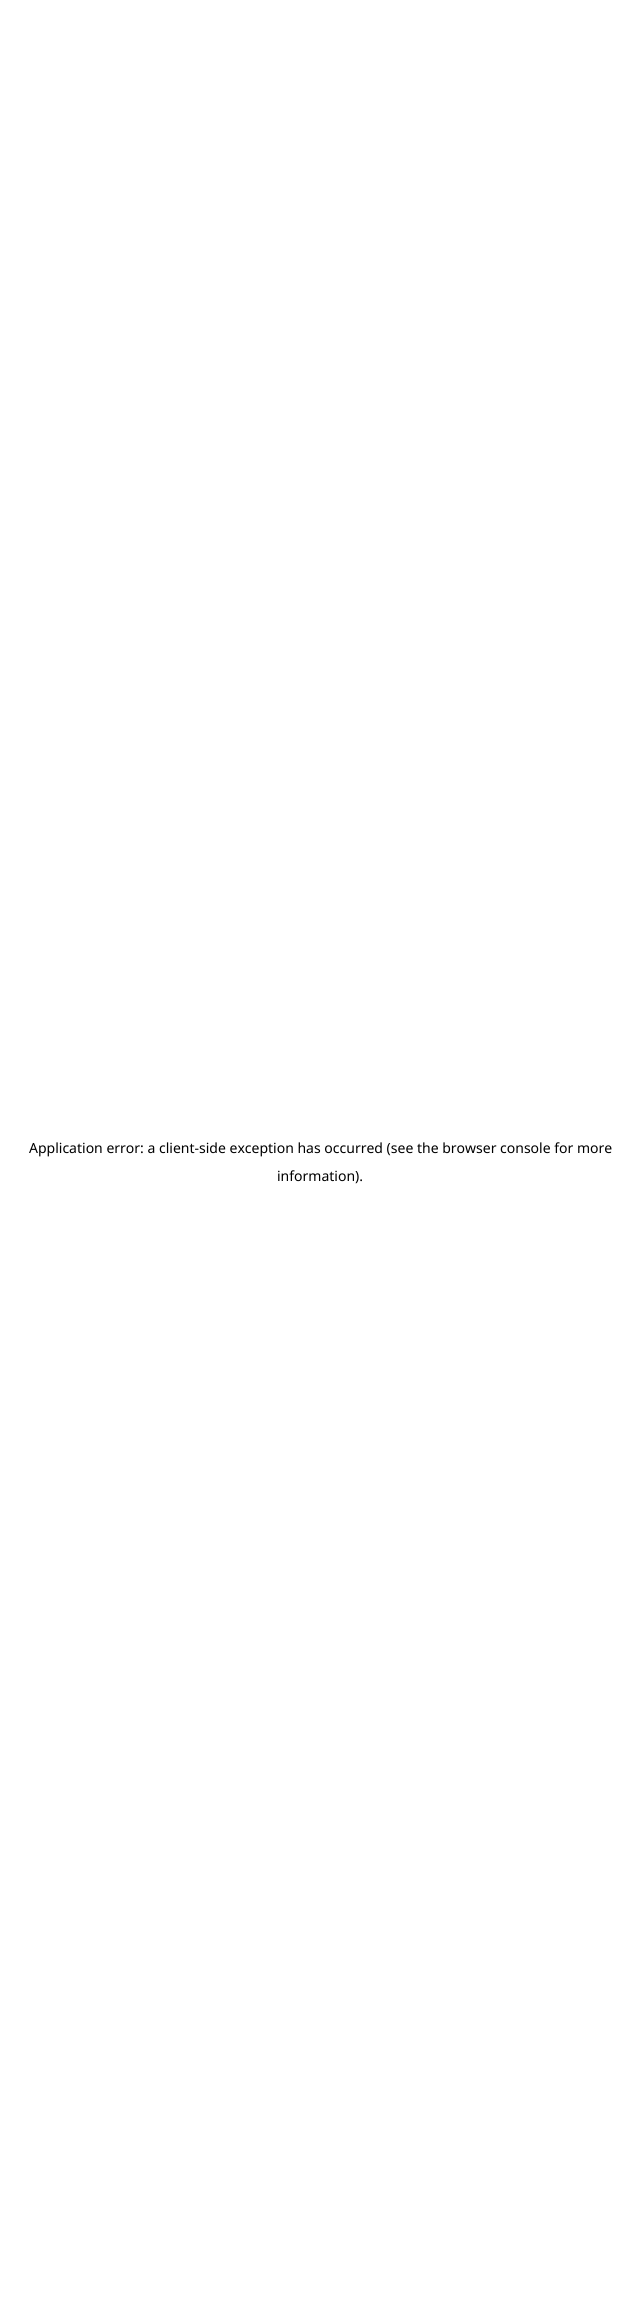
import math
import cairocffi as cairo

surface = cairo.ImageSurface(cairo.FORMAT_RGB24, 641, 2307)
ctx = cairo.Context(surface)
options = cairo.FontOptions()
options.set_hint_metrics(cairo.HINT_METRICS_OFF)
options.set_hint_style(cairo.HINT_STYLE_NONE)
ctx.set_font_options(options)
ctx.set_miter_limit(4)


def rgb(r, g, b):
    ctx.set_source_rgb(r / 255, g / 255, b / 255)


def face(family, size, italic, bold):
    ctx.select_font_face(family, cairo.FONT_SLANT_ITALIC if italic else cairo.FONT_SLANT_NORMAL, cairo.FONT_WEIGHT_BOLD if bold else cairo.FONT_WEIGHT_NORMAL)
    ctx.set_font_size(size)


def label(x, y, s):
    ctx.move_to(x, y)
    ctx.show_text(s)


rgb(255, 255, 255)
ctx.paint()
face('Noto Sans', 14, 0, 0)
rgb(0, 0, 0)
label(29, 1153, 'Application error: a client-side exception has occurred (see the browser console for more')
label(277, 1181, 'information).')
surface.write_to_png('render.png')
